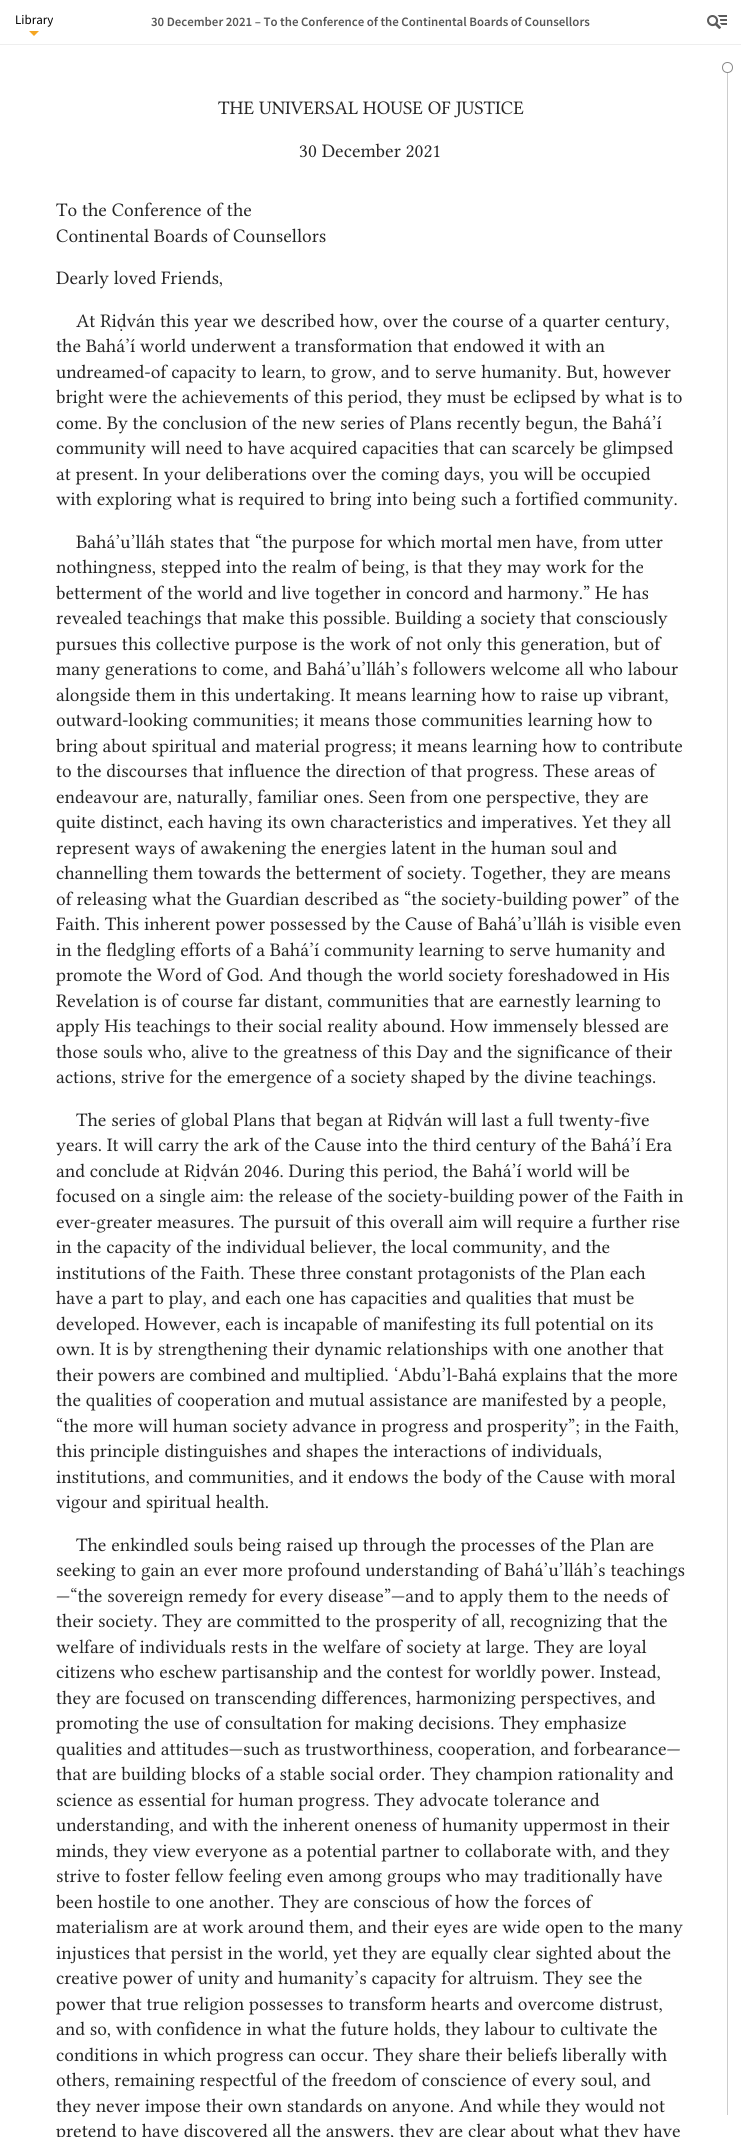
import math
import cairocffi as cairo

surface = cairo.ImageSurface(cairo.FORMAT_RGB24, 741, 2137)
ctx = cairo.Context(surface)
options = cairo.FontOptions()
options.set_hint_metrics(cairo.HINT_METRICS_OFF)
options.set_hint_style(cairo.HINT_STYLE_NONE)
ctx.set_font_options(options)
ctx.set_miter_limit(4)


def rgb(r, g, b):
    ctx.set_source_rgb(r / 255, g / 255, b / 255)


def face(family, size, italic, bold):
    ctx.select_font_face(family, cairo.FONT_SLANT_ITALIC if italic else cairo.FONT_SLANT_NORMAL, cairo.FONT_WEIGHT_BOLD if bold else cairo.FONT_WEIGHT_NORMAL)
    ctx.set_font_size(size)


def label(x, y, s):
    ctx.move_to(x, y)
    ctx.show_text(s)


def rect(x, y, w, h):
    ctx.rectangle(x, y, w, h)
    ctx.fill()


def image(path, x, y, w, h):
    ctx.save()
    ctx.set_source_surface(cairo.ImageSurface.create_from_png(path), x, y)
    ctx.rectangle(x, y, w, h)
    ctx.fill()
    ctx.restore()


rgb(255, 255, 255)
ctx.paint()
rgb(238, 238, 238)
rect(0, 44, 741, 1)
face('Source Sans Pro', 13, 0, 0)
rgb(0, 0, 0)
label(15, 24, 'Library')
rgb(245, 166, 35)
ctx.new_path()
ctx.move_to(29, 31)
ctx.line_to(39, 31)
ctx.line_to(34, 36)
ctx.close_path()
ctx.fill()
face('Source Sans Pro SemiBold', 13, 0, 0)
rgb(86, 86, 86)
label(151, 26, '30 December 2021 – To the Conference of the Continental Boards of Counsellors')
image('image0.png', 707, 15, 20, 14)
face('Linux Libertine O', 17, 0, 0)
rgb(38, 38, 38)
label(218, 114, 'THE UNIVERSAL HOUSE OF JUSTICE')
label(299, 157, '30 December 2021')
label(56, 216, 'To the Conference of the')
label(56, 242, 'Continental Boards of Counsellors')
label(56, 284, 'Dearly loved Friends,')
label(76, 327, 'At Riḍván this year we described how, over the course of a quarter century,')
label(56, 352, 'the Bahá’í world underwent a transformation that endowed it with an')
label(56, 378, 'undreamed-of capacity to learn, to grow, and to serve humanity. But, however')
label(56, 403, 'bright were the achievements of this period, they must be eclipsed by what is to')
label(56, 429, 'come. By the conclusion of the new series of Plans recently begun, the Bahá’í')
label(56, 454, 'community will need to have acquired capacities that can scarcely be glimpsed')
label(56, 480, 'at present. In your deliberations over the coming days, you will be occupied')
label(56, 505, 'with exploring what is required to bring into being such a fortified community.')
label(76, 548, 'Bahá’u’lláh states that “the purpose for which mortal men have, from utter')
label(56, 573, 'nothingness, stepped into the realm of being, is that they may work for the')
label(56, 599, 'betterment of the world and live together in concord and harmony.” He has')
label(56, 624, 'revealed teachings that make this possible. Building a society that consciously')
label(56, 650, 'pursues this collective purpose is the work of not only this generation, but of')
label(56, 675, 'many generations to come, and Bahá’u’lláh’s followers welcome all who labour')
label(56, 701, 'alongside them in this undertaking. It means learning how to raise up vibrant,')
label(56, 726, 'outward-looking communities; it means those communities learning how to')
label(56, 752, 'bring about spiritual and material progress; it means learning how to contribute')
label(56, 777, 'to the discourses that influence the direction of that progress. These areas of')
label(56, 803, 'endeavour are, naturally, familiar ones. Seen from one perspective, they are')
label(56, 828, 'quite distinct, each having its own characteristics and imperatives. Yet they all')
label(56, 854, 'represent ways of awakening the energies latent in the human soul and')
label(56, 879, 'channelling them towards the betterment of society. Together, they are means')
label(56, 905, 'of releasing what the Guardian described as “the society-building power” of the')
label(56, 930, 'Faith. This inherent power possessed by the Cause of Bahá’u’lláh is visible even')
label(56, 956, 'in the fledgling efforts of a Bahá’í community learning to serve humanity and')
label(56, 981, 'promote the Word of God. And though the world society foreshadowed in His')
label(56, 1007, 'Revelation is of course far distant, communities that are earnestly learning to')
label(56, 1032, 'apply His teachings to their social reality abound. How immensely blessed are')
label(56, 1058, 'those souls who, alive to the greatness of this Day and the significance of their')
label(56, 1083, 'actions, strive for the emergence of a society shaped by the divine teachings.')
label(76, 1126, 'The series of global Plans that began at Riḍván will last a full twenty-five')
label(56, 1151, 'years. It will carry the ark of the Cause into the third century of the Bahá’í Era')
label(56, 1177, 'and conclude at Riḍván 2046. During this period, the Bahá’í world will be')
label(56, 1202, 'focused on a single aim: the release of the society-building power of the Faith in')
label(56, 1228, 'ever-greater measures. The pursuit of this overall aim will require a further rise')
label(56, 1253, 'in the capacity of the individual believer, the local community, and the')
label(56, 1279, 'institutions of the Faith. These three constant protagonists of the Plan each')
label(56, 1304, 'have a part to play, and each one has capacities and qualities that must be')
label(56, 1330, 'developed. However, each is incapable of manifesting its full potential on its')
label(56, 1355, 'own. It is by strengthening their dynamic relationships with one another that')
label(56, 1381, 'their powers are combined and multiplied. ‘Abdu’l-Bahá explains that the more')
label(56, 1406, 'the qualities of cooperation and mutual assistance are manifested by a people,')
label(56, 1432, '“the more will human society advance in progress and prosperity”; in the Faith,')
label(56, 1457, 'this principle distinguishes and shapes the interactions of individuals,')
label(56, 1483, 'institutions, and communities, and it endows the body of the Cause with moral')
label(56, 1508, 'vigour and spiritual health.')
label(76, 1551, 'The enkindled souls being raised up through the processes of the Plan are')
label(56, 1576, 'seeking to gain an ever more profound understanding of Bahá’u’lláh’s teachings')
label(56, 1602, '—“the sovereign remedy for every disease”—and to apply them to the needs of')
label(56, 1627, 'their society. They are committed to the prosperity of all, recognizing that the')
label(56, 1653, 'welfare of individuals rests in the welfare of society at large. They are loyal')
label(56, 1678, 'citizens who eschew partisanship and the contest for worldly power. Instead,')
label(56, 1704, 'they are focused on transcending differences, harmonizing perspectives, and')
label(56, 1729, 'promoting the use of consultation for making decisions. They emphasize')
label(56, 1755, 'qualities and attitudes—such as trustworthiness, cooperation, and forbearance—')
label(56, 1780, 'that are building blocks of a stable social order. They champion rationality and')
label(56, 1806, 'science as essential for human progress. They advocate tolerance and')
label(56, 1831, 'understanding, and with the inherent oneness of humanity uppermost in their')
label(56, 1857, 'minds, they view everyone as a potential partner to collaborate with, and they')
label(56, 1882, 'strive to foster fellow feeling even among groups who may traditionally have')
label(56, 1908, 'been hostile to one another. They are conscious of how the forces of')
label(56, 1933, 'materialism are at work around them, and their eyes are wide open to the many')
label(56, 1959, 'injustices that persist in the world, yet they are equally clear sighted about the')
label(56, 1984, 'creative power of unity and humanity’s capacity for altruism. They see the')
label(56, 2010, 'power that true religion possesses to transform hearts and overcome distrust,')
label(56, 2035, 'and so, with confidence in what the future holds, they labour to cultivate the')
label(56, 2061, 'conditions in which progress can occur. They share their beliefs liberally with')
label(56, 2086, 'others, remaining respectful of the freedom of conscience of every soul, and')
label(56, 2112, 'they never impose their own standards on anyone. And while they would not')
label(56, 2137, 'pretend to have discovered all the answers, they are clear about what they have')
rgb(204, 204, 204)
rect(727, 67, 1, 2048)
rgb(255, 255, 255)
ctx.new_path()
ctx.arc(727.5, 67.5, 5, 0, 2 * math.pi)
ctx.fill_preserve()
rgb(136, 136, 136)
ctx.set_line_width(1)
ctx.stroke()
surface.write_to_png('render.png')
